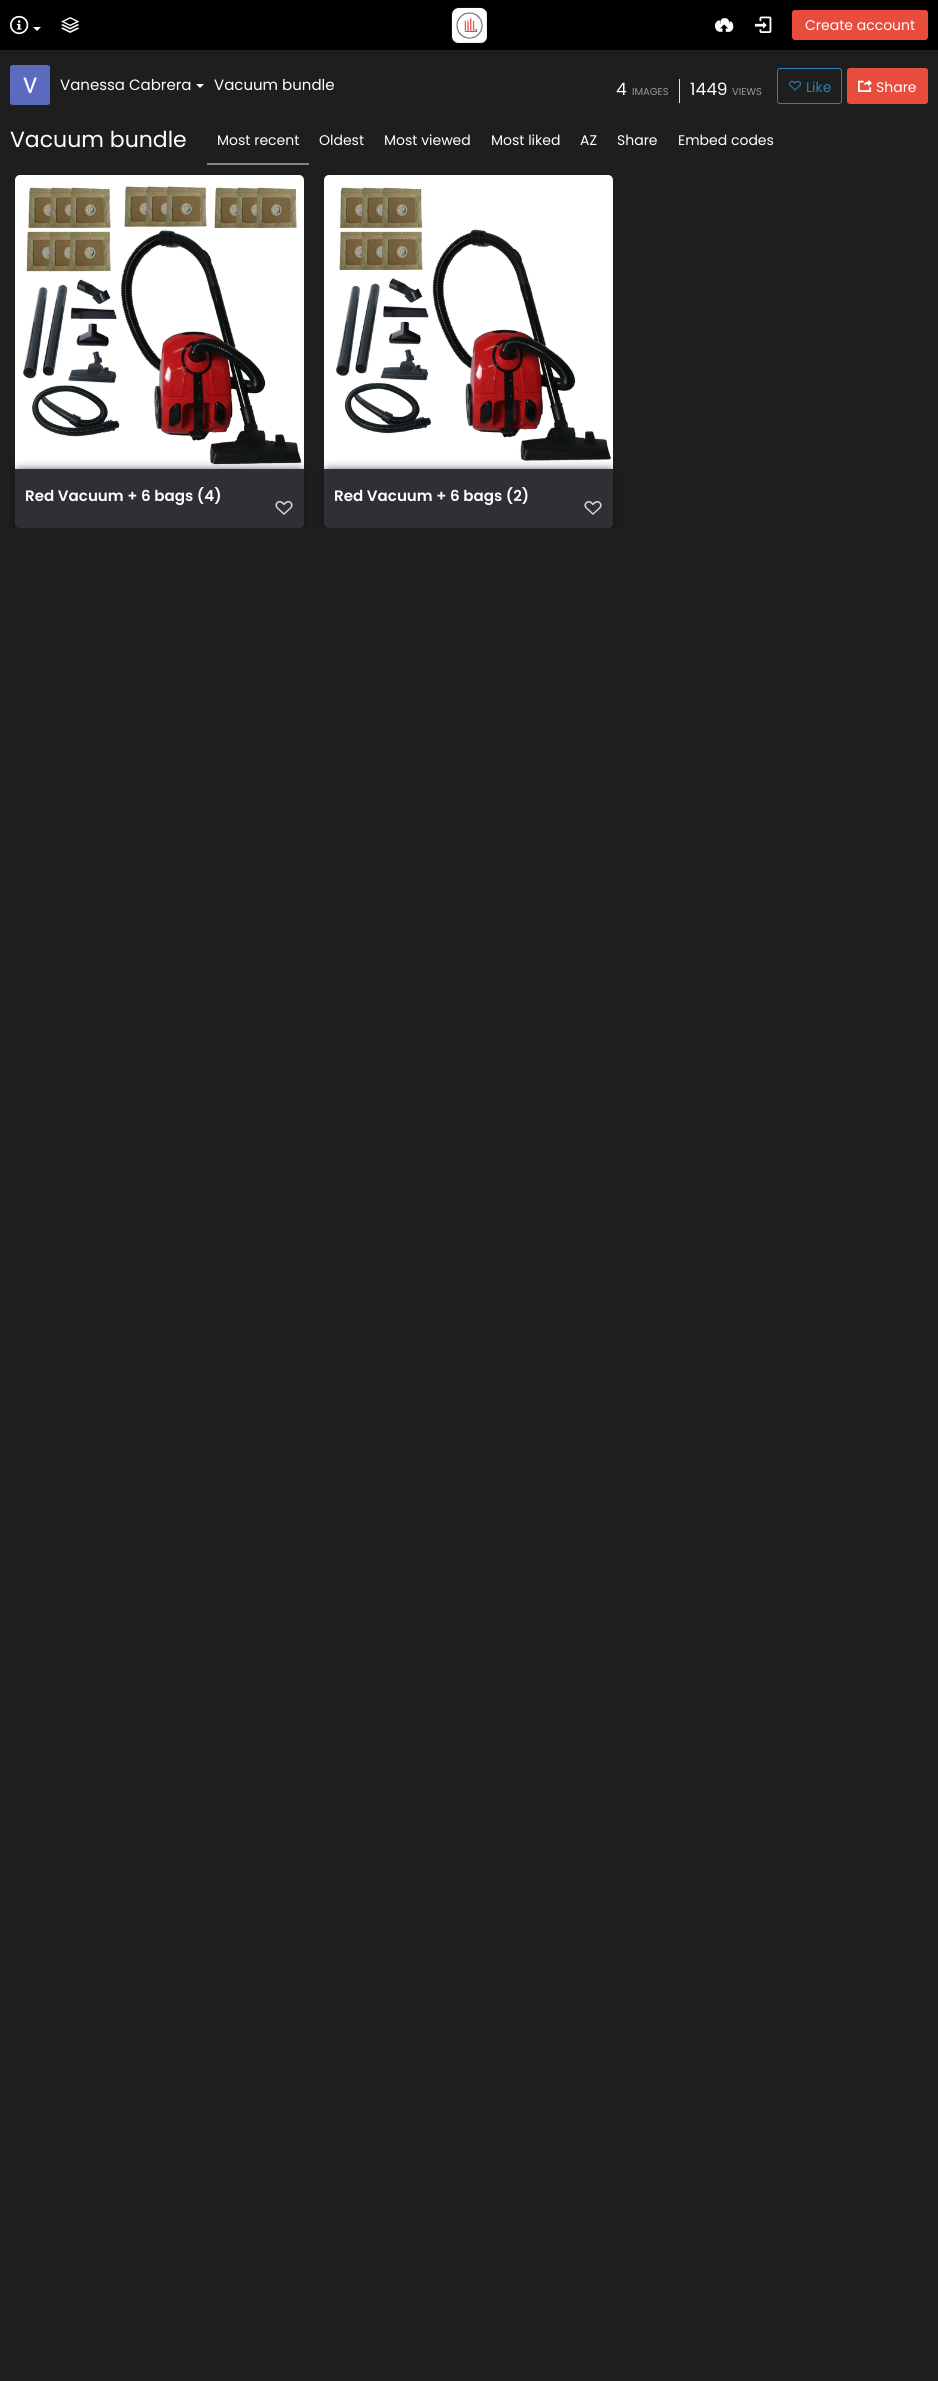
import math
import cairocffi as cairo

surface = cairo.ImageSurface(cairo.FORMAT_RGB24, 938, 2381)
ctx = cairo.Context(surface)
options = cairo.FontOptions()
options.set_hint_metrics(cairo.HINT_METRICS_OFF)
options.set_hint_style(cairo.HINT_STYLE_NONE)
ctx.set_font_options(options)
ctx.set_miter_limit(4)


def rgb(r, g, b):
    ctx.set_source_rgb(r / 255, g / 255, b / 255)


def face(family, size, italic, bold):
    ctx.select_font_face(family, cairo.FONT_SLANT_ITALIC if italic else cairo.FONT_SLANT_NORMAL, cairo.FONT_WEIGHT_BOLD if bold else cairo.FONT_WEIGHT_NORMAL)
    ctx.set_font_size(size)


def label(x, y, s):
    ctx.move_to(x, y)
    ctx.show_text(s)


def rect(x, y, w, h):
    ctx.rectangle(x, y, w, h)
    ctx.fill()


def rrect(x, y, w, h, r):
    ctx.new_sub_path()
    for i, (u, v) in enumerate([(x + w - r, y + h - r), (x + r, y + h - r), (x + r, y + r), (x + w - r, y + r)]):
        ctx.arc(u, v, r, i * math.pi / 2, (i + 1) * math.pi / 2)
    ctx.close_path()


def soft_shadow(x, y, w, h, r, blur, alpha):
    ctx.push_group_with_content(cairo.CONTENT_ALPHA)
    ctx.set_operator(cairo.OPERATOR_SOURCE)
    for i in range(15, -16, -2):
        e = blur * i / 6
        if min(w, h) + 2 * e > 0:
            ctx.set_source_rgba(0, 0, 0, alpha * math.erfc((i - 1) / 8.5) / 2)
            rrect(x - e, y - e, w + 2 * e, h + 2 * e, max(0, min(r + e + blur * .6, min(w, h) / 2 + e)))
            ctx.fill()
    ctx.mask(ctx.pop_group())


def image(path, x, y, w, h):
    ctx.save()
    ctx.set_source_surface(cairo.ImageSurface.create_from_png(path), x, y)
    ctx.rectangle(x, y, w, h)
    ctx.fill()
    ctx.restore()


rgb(30, 30, 30)
ctx.paint()
rgb(0, 0, 0)
rect(0, 0, 938, 50)
image('image0.png', 10, 15, 19, 20)
rgb(255, 255, 255)
ctx.new_path()
ctx.move_to(33, 27)
ctx.line_to(41, 27)
ctx.line_to(37, 31)
ctx.close_path()
ctx.fill()
image('image1.png', 61, 17, 19, 16)
image('image2.png', 451, 7, 36, 36)
image('image3.png', 715, 18, 19, 14)
image('image4.png', 754, 16, 18, 17)
rgb(232, 76, 61)
rrect(792, 10, 136, 30, 3)
ctx.fill()
face('Poppins', 14, 0, 0)
rgb(255, 255, 255)
label(805, 30, 'Create account')
image('image5.png', 10, 65, 40, 40)
face('Poppins', 15, 0, 0)
label(60, 90, 'Vanessa Cabrera')
ctx.new_path()
ctx.move_to(196, 84)
ctx.line_to(204, 84)
ctx.line_to(200, 88)
ctx.close_path()
ctx.fill()
label(214, 90, 'Vacuum bundle')
face('Poppins', 17, 0, 0)
label(616, 95, '4')
face('Poppins', 10, 0, 0)
rgb(153, 153, 153)
label(632, 95, 'IMAGES')
rgb(229, 229, 229)
rect(679, 79, 1, 24)
face('Poppins', 17, 0, 0)
rgb(255, 255, 255)
label(690, 95, '1449')
face('Poppins', 10, 0, 0)
rgb(153, 153, 153)
label(732, 95, 'VIEWS')
rrect(777.5, 68.5, 64, 35, 2.5)
rgb(42, 128, 185)
ctx.set_line_width(1)
ctx.stroke()
image('image6.png', 789, 80, 12, 11)
face('Poppins', 14, 0, 0)
label(806, 92, 'Like')
rgb(232, 76, 61)
rrect(847, 68, 81, 36, 3)
ctx.fill()
image('image7.png', 858, 79, 14, 13)
rgb(255, 255, 255)
label(876, 92, 'Share')
rgb(33, 33, 33)
rect(10, 164, 918, 1)
face('Poppins', 22, 0, 0)
rgb(255, 255, 255)
label(10, 147, 'Vacuum bundle')
rgb(122, 136, 140)
rect(207, 163, 102, 2)
face('Poppins', 14, 0, 0)
rgb(255, 255, 255)
label(217, 145, 'Most recent')
label(319, 145, 'Oldest')
label(384, 145, 'Most viewed')
label(491, 145, 'Most liked')
label(580, 145, 'AZ')
label(617, 145, 'Share')
label(678, 145, 'Embed codes')
image('image8.png', 15, 175, 289, 294)
ctx.save()
ctx.rectangle(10, 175, 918, 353)
ctx.clip()
rgb(21, 21, 21)
soft_shadow(14, 471, 291, 61, 6, 5, 1)
ctx.restore()
rgb(46, 48, 53)
ctx.new_path()
ctx.move_to(15, 469)
ctx.line_to(304, 469)
ctx.line_to(304, 523)
ctx.curve_to(304, 526, 302, 528, 299, 528)
ctx.line_to(20, 528)
ctx.curve_to(17, 528, 15, 526, 15, 523)
ctx.close_path()
ctx.fill()
face('Poppins SemiBold', 15.1, 0, 0)
rgb(255, 255, 255)
label(25, 501, 'Red Vacuum + 6 bags (4)')
image('image9.png', 275, 501, 18, 14)
image('image10.png', 324, 175, 289, 294)
ctx.save()
ctx.rectangle(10, 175, 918, 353)
ctx.clip()
rgb(21, 21, 21)
soft_shadow(323, 471, 291, 61, 6, 5, 1)
ctx.restore()
rgb(46, 48, 53)
ctx.new_path()
ctx.move_to(324, 469)
ctx.line_to(613, 469)
ctx.line_to(613, 523)
ctx.curve_to(613, 526, 611, 528, 608, 528)
ctx.line_to(329, 528)
ctx.curve_to(326, 528, 324, 526, 324, 523)
ctx.close_path()
ctx.fill()
rgb(255, 255, 255)
label(334, 501, 'Red Vacuum + 6 bags (2)')
image('image9.png', 584, 501, 18, 14)
surface.write_to_png('render.png')
